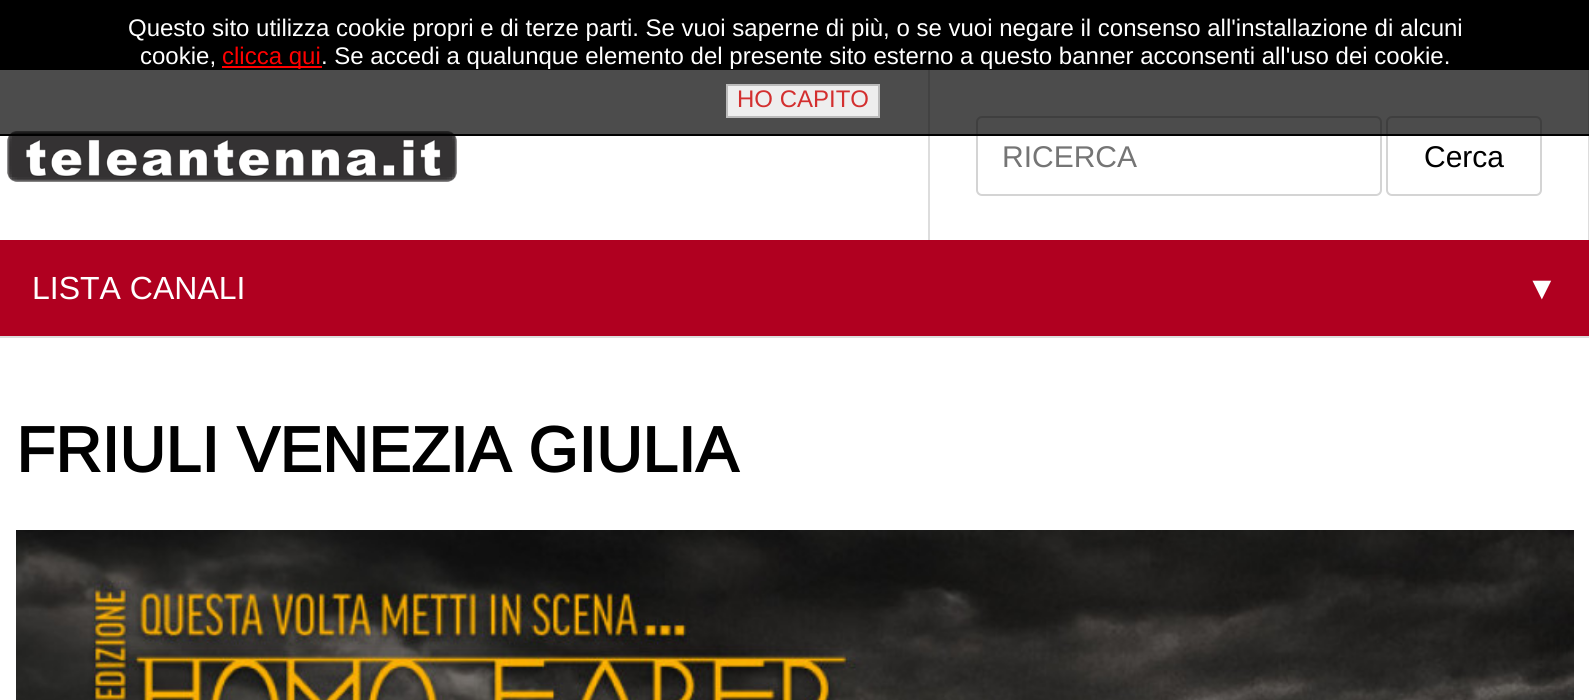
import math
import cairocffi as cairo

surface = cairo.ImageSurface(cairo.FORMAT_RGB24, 1589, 700)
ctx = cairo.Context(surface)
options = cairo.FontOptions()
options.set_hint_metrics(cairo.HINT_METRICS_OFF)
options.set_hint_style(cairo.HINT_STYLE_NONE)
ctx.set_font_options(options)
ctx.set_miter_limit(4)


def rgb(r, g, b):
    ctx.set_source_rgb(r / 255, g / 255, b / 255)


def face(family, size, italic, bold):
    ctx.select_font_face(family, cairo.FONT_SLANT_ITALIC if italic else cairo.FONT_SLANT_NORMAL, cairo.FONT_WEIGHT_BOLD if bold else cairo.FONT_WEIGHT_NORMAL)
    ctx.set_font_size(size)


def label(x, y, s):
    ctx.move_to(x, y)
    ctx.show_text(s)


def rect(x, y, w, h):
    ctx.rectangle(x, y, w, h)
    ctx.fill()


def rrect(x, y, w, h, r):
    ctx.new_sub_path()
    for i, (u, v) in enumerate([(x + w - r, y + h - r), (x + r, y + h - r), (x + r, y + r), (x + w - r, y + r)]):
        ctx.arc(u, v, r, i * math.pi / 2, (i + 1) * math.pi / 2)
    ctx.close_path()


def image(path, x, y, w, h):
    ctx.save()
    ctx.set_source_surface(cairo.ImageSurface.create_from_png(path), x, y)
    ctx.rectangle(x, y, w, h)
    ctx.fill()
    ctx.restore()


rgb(255, 255, 255)
ctx.paint()
rgb(0, 0, 0)
rect(0, 0, 1589, 70)
image('image0.png', 7, 131, 450, 51)
rgb(221, 221, 221)
rect(928, 70, 2, 170)
rect(1588, 70, 1, 170)
rrect(977, 117, 404, 78, 5)
rgb(212, 212, 212)
ctx.stroke()
rrect(1387, 117, 154, 78, 5)
ctx.stroke()
ctx.set_source_rgba(0, 0, 0, 0.7)
rect(0, 70, 1589, 64)
rgb(0, 0, 0)
rect(0, 134, 1589, 2)
face('Liberation Sans', 24, 0, 0)
rgb(255, 255, 255)
label(128, 36, 'Questo sito utilizza cookie propri e di terze parti. Se vuoi saperne di più, o se vuoi negare il consenso all\'installazione di alcuni')
label(140, 64, 'cookie,')
rgb(255, 0, 0)
rect(222, 66, 100, 2)
label(222, 64, 'clicca qui')
rgb(255, 255, 255)
label(321, 64, '. Se accedi a qualunque elemento del presente sito esterno a questo banner acconsenti all\'uso dei cookie.')
rgb(238, 238, 238)
ctx.rectangle(727, 85, 152, 32)
ctx.fill_preserve()
rgb(187, 187, 187)
ctx.stroke()
rgb(211, 47, 47)
label(737, 107, 'HO CAPITO')
rgb(221, 221, 221)
rect(0, 336, 1589, 2)
face('Arimo', 30, 0, 0)
rgb(117, 117, 117)
label(1002, 167, 'RICERCA')
rgb(0, 0, 0)
label(1424, 167, 'Cerca')
rgb(176, 0, 32)
rect(0, 240, 1589, 96)
face('Arimo', 32, 0, 0)
rgb(255, 255, 255)
label(32, 299, 'LISTA CANALI')
face('Liberation Sans', 32, 0, 0)
label(1526, 299, '▼')
face('Arimo', 64, 0, 1)
rgb(0, 0, 0)
label(16, 472, 'FRIULI VENEZIA GIULIA')
image('image1.png', 16, 530, 1558, 170)
surface.write_to_png('render.png')
